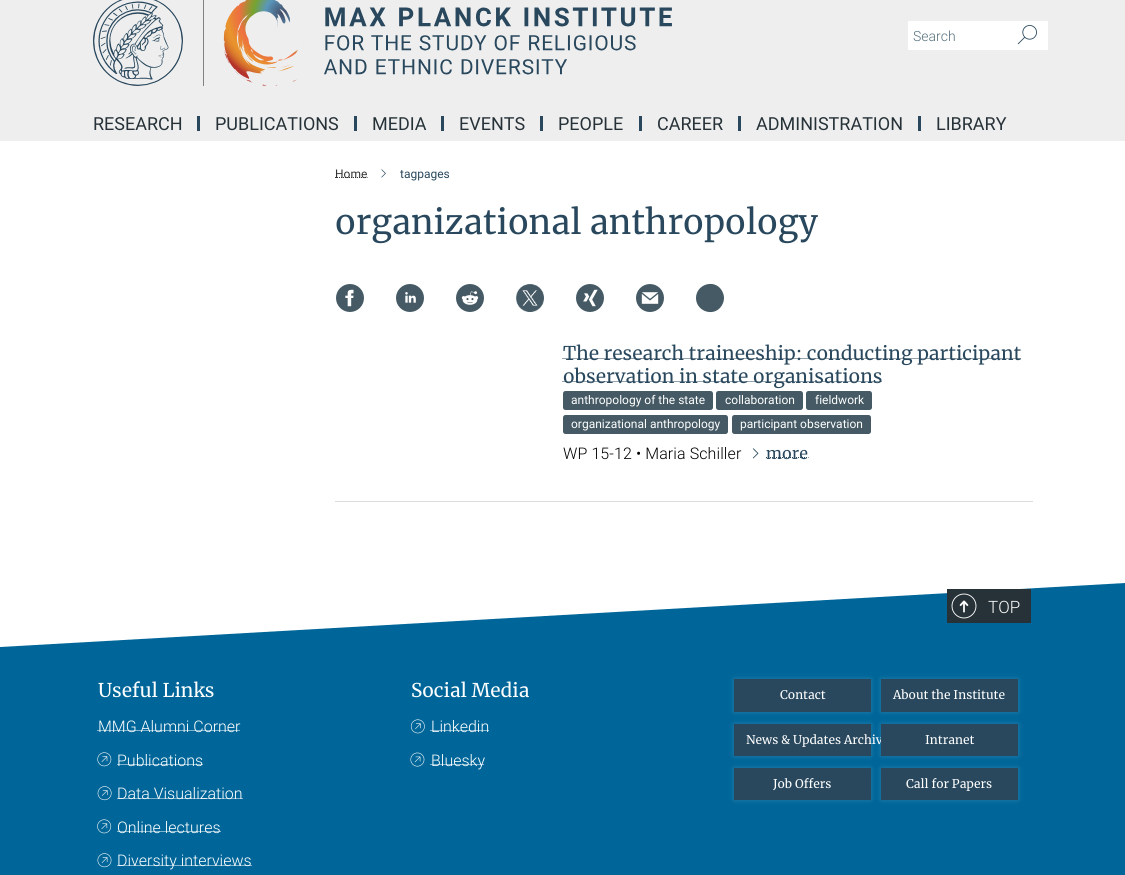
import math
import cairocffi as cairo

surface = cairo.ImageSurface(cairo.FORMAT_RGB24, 1125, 875)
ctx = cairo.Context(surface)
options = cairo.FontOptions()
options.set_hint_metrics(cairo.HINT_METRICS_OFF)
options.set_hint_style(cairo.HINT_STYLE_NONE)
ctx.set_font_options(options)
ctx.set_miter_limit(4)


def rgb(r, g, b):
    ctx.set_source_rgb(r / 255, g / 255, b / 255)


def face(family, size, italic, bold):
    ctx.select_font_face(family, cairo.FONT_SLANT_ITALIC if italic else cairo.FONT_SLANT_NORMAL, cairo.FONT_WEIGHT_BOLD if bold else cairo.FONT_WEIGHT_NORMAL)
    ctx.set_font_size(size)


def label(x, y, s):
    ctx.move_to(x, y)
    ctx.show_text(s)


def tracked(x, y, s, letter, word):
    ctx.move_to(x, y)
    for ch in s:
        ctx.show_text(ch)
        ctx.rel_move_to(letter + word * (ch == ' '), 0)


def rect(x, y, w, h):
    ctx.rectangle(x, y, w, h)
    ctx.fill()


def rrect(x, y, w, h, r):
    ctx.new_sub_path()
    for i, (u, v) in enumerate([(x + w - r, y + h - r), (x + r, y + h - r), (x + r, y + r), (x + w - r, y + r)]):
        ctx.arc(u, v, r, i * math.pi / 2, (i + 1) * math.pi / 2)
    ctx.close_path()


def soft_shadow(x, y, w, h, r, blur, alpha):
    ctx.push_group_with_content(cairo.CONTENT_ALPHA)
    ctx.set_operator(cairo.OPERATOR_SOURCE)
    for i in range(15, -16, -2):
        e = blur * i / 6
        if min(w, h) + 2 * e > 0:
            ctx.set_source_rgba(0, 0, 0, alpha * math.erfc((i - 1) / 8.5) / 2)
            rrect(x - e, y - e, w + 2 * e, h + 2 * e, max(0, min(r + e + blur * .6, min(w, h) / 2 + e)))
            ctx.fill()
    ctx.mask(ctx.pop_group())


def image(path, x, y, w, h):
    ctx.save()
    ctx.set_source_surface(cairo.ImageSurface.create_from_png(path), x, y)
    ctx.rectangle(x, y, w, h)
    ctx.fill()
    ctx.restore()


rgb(255, 255, 255)
ctx.paint()
rgb(238, 238, 238)
rect(0, 0, 1125, 141)
image('image0.png', 93, 0, 579, 86)
rgb(255, 255, 255)
rect(908, 21, 140, 29)
face('Roboto Light', 14, 0, 0)
rgb(84, 110, 122)
label(913, 41, 'Search')
image('image1.png', 1017, 25, 20, 20)
rgb(41, 72, 93)
rect(197, 116, 3, 15)
face('Roboto', 18, 0, 0)
rgb(38, 50, 56)
label(93, 130, 'RESEARCH')
rgb(41, 72, 93)
rect(354, 116, 3, 15)
rgb(38, 50, 56)
label(215, 130, 'PUBLICATIONS')
rgb(41, 72, 93)
rect(441, 116, 3, 15)
rgb(38, 50, 56)
label(372, 130, 'MEDIA')
rgb(41, 72, 93)
rect(540, 116, 3, 15)
rgb(38, 50, 56)
label(459, 130, 'EVENTS')
rgb(41, 72, 93)
rect(639, 116, 3, 15)
rgb(38, 50, 56)
label(558, 130, 'PEOPLE')
rgb(41, 72, 93)
rect(738, 116, 3, 15)
rgb(38, 50, 56)
label(657, 130, 'CAREER')
rgb(41, 72, 93)
rect(918, 116, 3, 15)
rgb(38, 50, 56)
label(756, 130, 'ADMINISTRATION')
label(936, 130, 'LIBRARY')
ctx.new_path()
ctx.move_to(335, 177.5)
ctx.line_to(367.5, 177.5)
rgb(51, 51, 51)
ctx.set_line_width(1)
ctx.set_dash([1, 1])
ctx.stroke()
face('Roboto', 12, 0, 0)
label(335, 178, 'Home')
image('image2.png', 381, 169, 5, 9)
rgb(41, 72, 93)
label(400, 178, 'tagpages')
face('Merriweather', 34, 0, 0)
label(335, 234, 'organizational anthropology')
image('image3.png', 336, 284, 28, 28)
image('image4.png', 396, 284, 28, 28)
image('image5.png', 456, 284, 28, 28)
image('image6.png', 516, 284, 28, 28)
image('image7.png', 576, 284, 28, 28)
image('image8.png', 636, 284, 28, 28)
rgb(69, 90, 100)
ctx.new_path()
ctx.move_to(724, 298)
ctx.curve_to(724, 301, 723, 303.5, 721.5, 306)
ctx.curve_to(714, 317.5, 696, 311.5, 696, 298)
ctx.curve_to(696, 284.5, 714, 278.5, 721.5, 290)
ctx.curve_to(723, 292.5, 724, 295, 724, 298)
ctx.close_path()
ctx.fill()
rgb(221, 221, 221)
rect(335, 501, 698, 1)
ctx.new_path()
ctx.move_to(562.5, 358.5)
ctx.line_to(1021, 358.5)
rgb(41, 72, 93)
ctx.stroke()
face('Merriweather', 19, 0, 0)
label(563, 360, 'The research traineeship: conducting participant')
ctx.new_path()
ctx.move_to(562.5, 381.5)
ctx.line_to(882, 381.5)
ctx.stroke()
label(563, 383, 'observation in state organisations')
rgb(69, 90, 100)
rrect(563, 391, 150, 19, 2.5)
ctx.fill()
face('Roboto', 12, 0, 0)
rgb(255, 255, 255)
label(571, 404, 'anthropology of the state')
rgb(69, 90, 100)
rrect(716, 391, 87, 19, 2.5)
ctx.fill()
rgb(255, 255, 255)
label(725, 404, 'collaboration')
rgb(69, 90, 100)
rrect(806, 391, 66, 19, 2.5)
ctx.fill()
rgb(255, 255, 255)
label(815, 404, 'fieldwork')
rgb(69, 90, 100)
rrect(563, 415, 165, 19, 2.5)
ctx.fill()
rgb(255, 255, 255)
label(571, 428, 'organizational anthropology')
rgb(69, 90, 100)
rrect(732, 415, 139, 19, 2.5)
ctx.fill()
rgb(255, 255, 255)
label(740, 428, 'participant observation')
face('Roboto Light', 16, 0, 0)
rgb(0, 0, 0)
tracked(563, 459, 'WP 15-12 • Maria Schiller', 0.1, 0)
image('image9.png', 752, 448, 7, 11)
ctx.new_path()
ctx.move_to(766, 457.5)
ctx.line_to(808.5, 457.5)
rgb(41, 72, 93)
ctx.stroke()
face('Merriweather', 16, 0, 0)
tracked(766, 459, 'more', 0.1, 0)
rgb(0, 102, 153)
rect(0, 653, 1125, 222)
ctx.new_path()
ctx.move_to(0, 647)
ctx.line_to(1125, 583)
ctx.line_to(1125, 653)
ctx.line_to(0, 653)
ctx.fill()
rgb(38, 50, 56)
rect(947, 589, 84, 34)
image('image10.png', 959, 600, 10, 13)
image('image11.png', 951, 593, 26, 26)
face('Roboto Light', 17, 0, 0)
rgb(255, 255, 255)
label(988, 613, 'TOP')
face('Merriweather', 19, 0, 0)
label(98, 697, 'Useful Links')
ctx.new_path()
ctx.move_to(97.5, 730.5)
ctx.line_to(240, 730.5)
ctx.stroke()
face('Roboto Light', 16, 0, 0)
label(98, 732, 'MMG Alumni Corner')
image('image12.png', 97, 752, 15, 15)
ctx.new_path()
ctx.move_to(117.5, 764.5)
ctx.line_to(203.5, 764.5)
ctx.stroke()
label(117, 766, 'Publications')
image('image13.png', 97, 786, 15, 15)
ctx.new_path()
ctx.move_to(117.5, 798.5)
ctx.line_to(243, 798.5)
ctx.stroke()
label(117, 799, 'Data Visualization')
image('image14.png', 97, 819, 15, 15)
ctx.new_path()
ctx.move_to(117.5, 831.5)
ctx.line_to(221, 831.5)
ctx.stroke()
label(117, 833, 'Online lectures')
image('image15.png', 97, 853, 15, 15)
ctx.new_path()
ctx.move_to(117.5, 865.5)
ctx.line_to(252, 865.5)
ctx.stroke()
label(117, 866, 'Diversity interviews')
face('Merriweather', 19, 0, 0)
label(411, 697, 'Social Media')
image('image16.png', 410, 719, 15, 15)
ctx.new_path()
ctx.move_to(430.5, 730.5)
ctx.line_to(489, 730.5)
ctx.stroke()
face('Roboto Light', 16, 0, 0)
label(431, 732, 'Linkedin')
image('image17.png', 410, 752, 15, 15)
ctx.new_path()
ctx.move_to(430.5, 764.5)
ctx.line_to(484.5, 764.5)
ctx.stroke()
label(431, 766, 'Bluesky')
rgb(255, 255, 255)
soft_shadow(734, 679, 137, 33, 0, 2.5, 0.15)
rgb(41, 72, 93)
rect(734, 679, 137, 33)
face('Merriweather', 12, 0, 0)
rgb(255, 255, 255)
label(780, 699, 'Contact')
rgb(255, 255, 255)
soft_shadow(881, 679, 137, 33, 0, 2.5, 0.15)
rgb(41, 72, 93)
rect(881, 679, 137, 33)
rgb(255, 255, 255)
label(893, 699, 'About the Institute')
rgb(255, 255, 255)
soft_shadow(734, 724, 137, 32, 0, 2.5, 0.15)
rgb(41, 72, 93)
rect(734, 724, 137, 32)
rgb(255, 255, 255)
label(746, 744, 'News & Updates Archiv')
rgb(255, 255, 255)
soft_shadow(881, 724, 137, 32, 0, 2.5, 0.15)
rgb(41, 72, 93)
rect(881, 724, 137, 32)
rgb(255, 255, 255)
label(925, 744, 'Intranet')
rgb(255, 255, 255)
soft_shadow(734, 768, 137, 32, 0, 2.5, 0.15)
rgb(41, 72, 93)
rect(734, 768, 137, 32)
rgb(255, 255, 255)
label(773, 788, 'Job Offers')
rgb(255, 255, 255)
soft_shadow(881, 768, 137, 32, 0, 2.5, 0.15)
rgb(41, 72, 93)
rect(881, 768, 137, 32)
rgb(255, 255, 255)
label(906, 788, 'Call for Papers')
surface.write_to_png('render.png')
